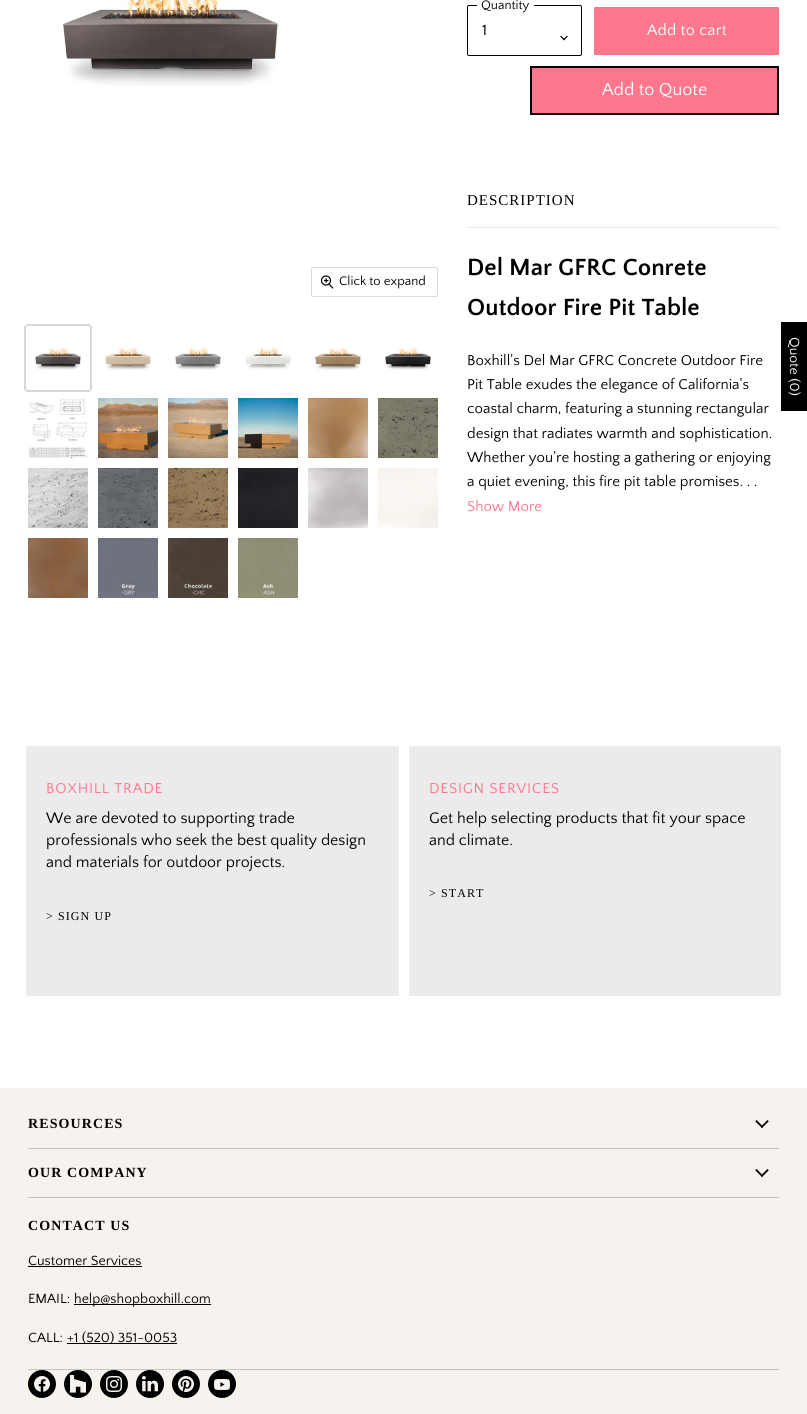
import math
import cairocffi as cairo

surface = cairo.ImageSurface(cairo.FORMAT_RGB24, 807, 1414)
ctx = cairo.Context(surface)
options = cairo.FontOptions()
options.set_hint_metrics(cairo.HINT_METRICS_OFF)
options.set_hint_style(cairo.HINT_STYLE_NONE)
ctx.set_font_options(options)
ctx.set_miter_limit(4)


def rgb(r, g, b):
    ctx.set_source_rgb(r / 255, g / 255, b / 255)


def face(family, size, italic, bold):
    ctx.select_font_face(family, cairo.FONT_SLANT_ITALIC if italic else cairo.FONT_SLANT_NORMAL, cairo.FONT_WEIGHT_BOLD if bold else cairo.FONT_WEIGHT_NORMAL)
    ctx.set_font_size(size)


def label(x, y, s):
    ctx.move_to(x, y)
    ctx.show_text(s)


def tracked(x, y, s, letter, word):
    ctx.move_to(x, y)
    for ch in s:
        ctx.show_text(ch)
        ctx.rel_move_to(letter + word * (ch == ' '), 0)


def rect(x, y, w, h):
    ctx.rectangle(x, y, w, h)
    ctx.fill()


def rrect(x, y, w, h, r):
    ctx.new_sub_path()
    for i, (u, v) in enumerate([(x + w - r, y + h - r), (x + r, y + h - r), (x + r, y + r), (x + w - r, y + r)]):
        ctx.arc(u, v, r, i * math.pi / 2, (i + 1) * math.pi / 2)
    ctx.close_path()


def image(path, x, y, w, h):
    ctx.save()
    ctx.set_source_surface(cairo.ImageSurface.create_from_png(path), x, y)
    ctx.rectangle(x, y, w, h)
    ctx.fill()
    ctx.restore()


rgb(255, 255, 255)
ctx.paint()
image('image0.png', 62, 0, 216, 86)
rrect(311.5, 267.5, 126, 29, 1.5)
rgb(217, 217, 217)
ctx.set_line_width(1)
ctx.stroke()
ctx.set_source_rgba(1, 1, 1, 0.9)
rrect(312, 268, 125, 28, 1)
ctx.fill()
image('image1.png', 321, 275, 13, 14)
face('Quattrocento Sans', 13, 0, 0)
rgb(0, 0, 0)
label(339, 285, 'Click to expand')
rrect(25, 325, 66, 66, 3)
rgb(215, 215, 215)
ctx.set_line_width(2)
ctx.stroke()
image('image2.png', 35, 347, 46, 23)
image('image3.png', 105, 347, 51, 24)
image('image4.png', 175, 347, 46, 23)
image('image5.png', 245, 347, 46, 23)
image('image6.png', 315, 347, 46, 24)
image('image7.png', 385, 347, 46, 23)
image('image8.png', 28, 398, 60, 60)
image('image9.png', 98, 398, 60, 60)
image('image10.png', 168, 398, 60, 60)
image('image11.png', 238, 398, 60, 60)
image('image12.png', 308, 398, 60, 60)
image('image13.png', 378, 398, 60, 60)
image('image14.png', 28, 468, 60, 60)
image('image15.png', 98, 468, 60, 60)
image('image16.png', 168, 468, 60, 60)
image('image17.png', 238, 468, 60, 60)
image('image18.png', 308, 468, 60, 60)
image('image19.png', 378, 468, 60, 60)
image('image20.png', 28, 538, 60, 60)
image('image21.png', 98, 538, 60, 60)
image('image22.png', 168, 538, 60, 60)
image('image23.png', 238, 538, 60, 60)
rrect(467.5, 5.5, 114, 50, 1.5)
rgb(0, 0, 0)
ctx.set_line_width(1)
ctx.stroke()
rgb(255, 255, 255)
rect(477, 5, 57, 1)
rgb(0, 0, 0)
label(481, 9, 'Quantity')
face('Quattrocento Sans', 16, 0, 0)
label(482, 35, '1')
image('image24.png', 560, 35, 8, 6)
rgb(254, 119, 140)
rrect(594.5, 7.5, 184, 47, 0.5)
ctx.fill_preserve()
ctx.stroke()
rgb(255, 255, 255)
tracked(647, 35, 'Add to cart', 0.25, 0)
rgb(254, 119, 140)
ctx.rectangle(531, 67, 247, 47)
ctx.fill_preserve()
rgb(0, 0, 0)
ctx.set_line_width(2)
ctx.stroke()
face('Quattrocento Sans', 18, 0, 0)
rgb(255, 255, 255)
label(602, 95, 'Add to Quote')
rgb(232, 232, 225)
rect(467, 227, 312, 1)
face('Liberation Serif', 15, 0, 0)
rgb(0, 0, 0)
tracked(467, 205, 'DESCRIPTION', 1, 0)
face('Quattrocento Sans', 24.5, 0, 1)
label(467, 275, 'Del Mar GFRC Conrete')
label(467, 315, 'Outdoor Fire Pit Table')
face('Quattrocento Sans', 15, 0, 0)
label(467, 365, 'Boxhill\'s Del Mar GFRC Concrete Outdoor Fire')
label(467, 389, 'Pit Table exudes the elegance of California\'s')
label(467, 413, 'coastal charm, featuring a stunning rectangular')
label(467, 438, 'design that radiates warmth and sophistication.')
label(467, 462, 'Whether you\'re hosting a gathering or enjoying')
label(467, 486, 'a quiet evening, this fire pit table promises. . .')
rgb(254, 119, 140)
label(467, 511, 'Show More')
rgb(235, 235, 235)
rrect(26, 746, 373, 250, 2)
ctx.fill()
rgb(254, 119, 140)
tracked(46, 793, 'BOXHILL TRADE', 0.75, 0)
face('Quattrocento Sans', 16, 0, 0)
rgb(0, 0, 0)
label(46, 823, 'We are devoted to supporting trade')
label(46, 845, 'professionals who seek the best quality design')
label(46, 867, 'and materials for outdoor projects.')
face('Liberation Serif', 12, 0, 0)
tracked(46, 920, '> SIGN UP', 1.1, 0)
rgb(235, 235, 235)
rrect(409, 746, 372, 250, 2)
ctx.fill()
face('Quattrocento Sans', 15, 0, 0)
rgb(254, 119, 140)
tracked(429, 793, 'DESIGN SERVICES', 0.75, 0)
face('Quattrocento Sans', 16, 0, 0)
rgb(0, 0, 0)
label(429, 823, 'Get help selecting products that fit your space')
label(429, 845, 'and climate.')
face('Liberation Serif', 12, 0, 0)
tracked(429, 897, '> START', 1.1, 0)
rect(781, 322, 26, 89)
face('Quattrocento Sans', 14, 0, 0)
rgb(255, 255, 255)
ctx.save()
ctx.translate(790, 337)
ctx.rotate(90 * math.pi / 180)
label(0, 0, 'Quote (0)')
ctx.restore()
rgb(246, 242, 238)
rect(0, 1088, 807, 326)
rgb(197, 194, 190)
rect(28, 1148, 751, 1)
face('Liberation Serif', 14, 0, 1)
rgb(0, 0, 0)
tracked(28, 1128, 'RESOURCES', 1.1, 0)
image('image25.png', 755, 1120, 14, 8)
rgb(197, 194, 190)
rect(28, 1197, 751, 1)
rgb(0, 0, 0)
tracked(28, 1177, 'OUR COMPANY', 1.1, 0)
image('image25.png', 755, 1169, 14, 8)
rgb(197, 194, 190)
rect(28, 1369, 751, 1)
rgb(0, 0, 0)
tracked(28, 1230, 'CONTACT US', 1.1, 0)
face('Quattrocento Sans', 14, 0, 0)
label(28, 1265, 'Customer Services')
rect(28, 1266, 114, 1)
label(28, 1303, 'EMAIL:')
rect(74, 1304, 137, 1)
label(74, 1303, 'help@shopboxhill.com')
label(28, 1342, 'CALL:')
rect(67, 1343, 110, 1)
label(67, 1342, '+1 (520) 351-0053')
ctx.new_path()
ctx.arc(42, 1384, 14, 0, 2 * math.pi)
ctx.fill()
image('image26.png', 34, 1376, 16, 16)
ctx.arc(78, 1384, 14, 0, 2 * math.pi)
ctx.fill()
image('image27.png', 70, 1375, 16, 18)
ctx.arc(114, 1384, 14, 0, 2 * math.pi)
ctx.fill()
image('image28.png', 106, 1376, 16, 16)
ctx.arc(150, 1384, 14, 0, 2 * math.pi)
ctx.fill()
image('image29.png', 142, 1376, 16, 16)
ctx.arc(186, 1384, 14, 0, 2 * math.pi)
ctx.fill()
image('image30.png', 178, 1376, 16, 16)
ctx.arc(222, 1384, 14, 0, 2 * math.pi)
ctx.fill()
image('image31.png', 214, 1379, 16, 11)
rgb(245, 245, 245)
rect(805, 1412, 2, 2)
surface.write_to_png('render.png')
